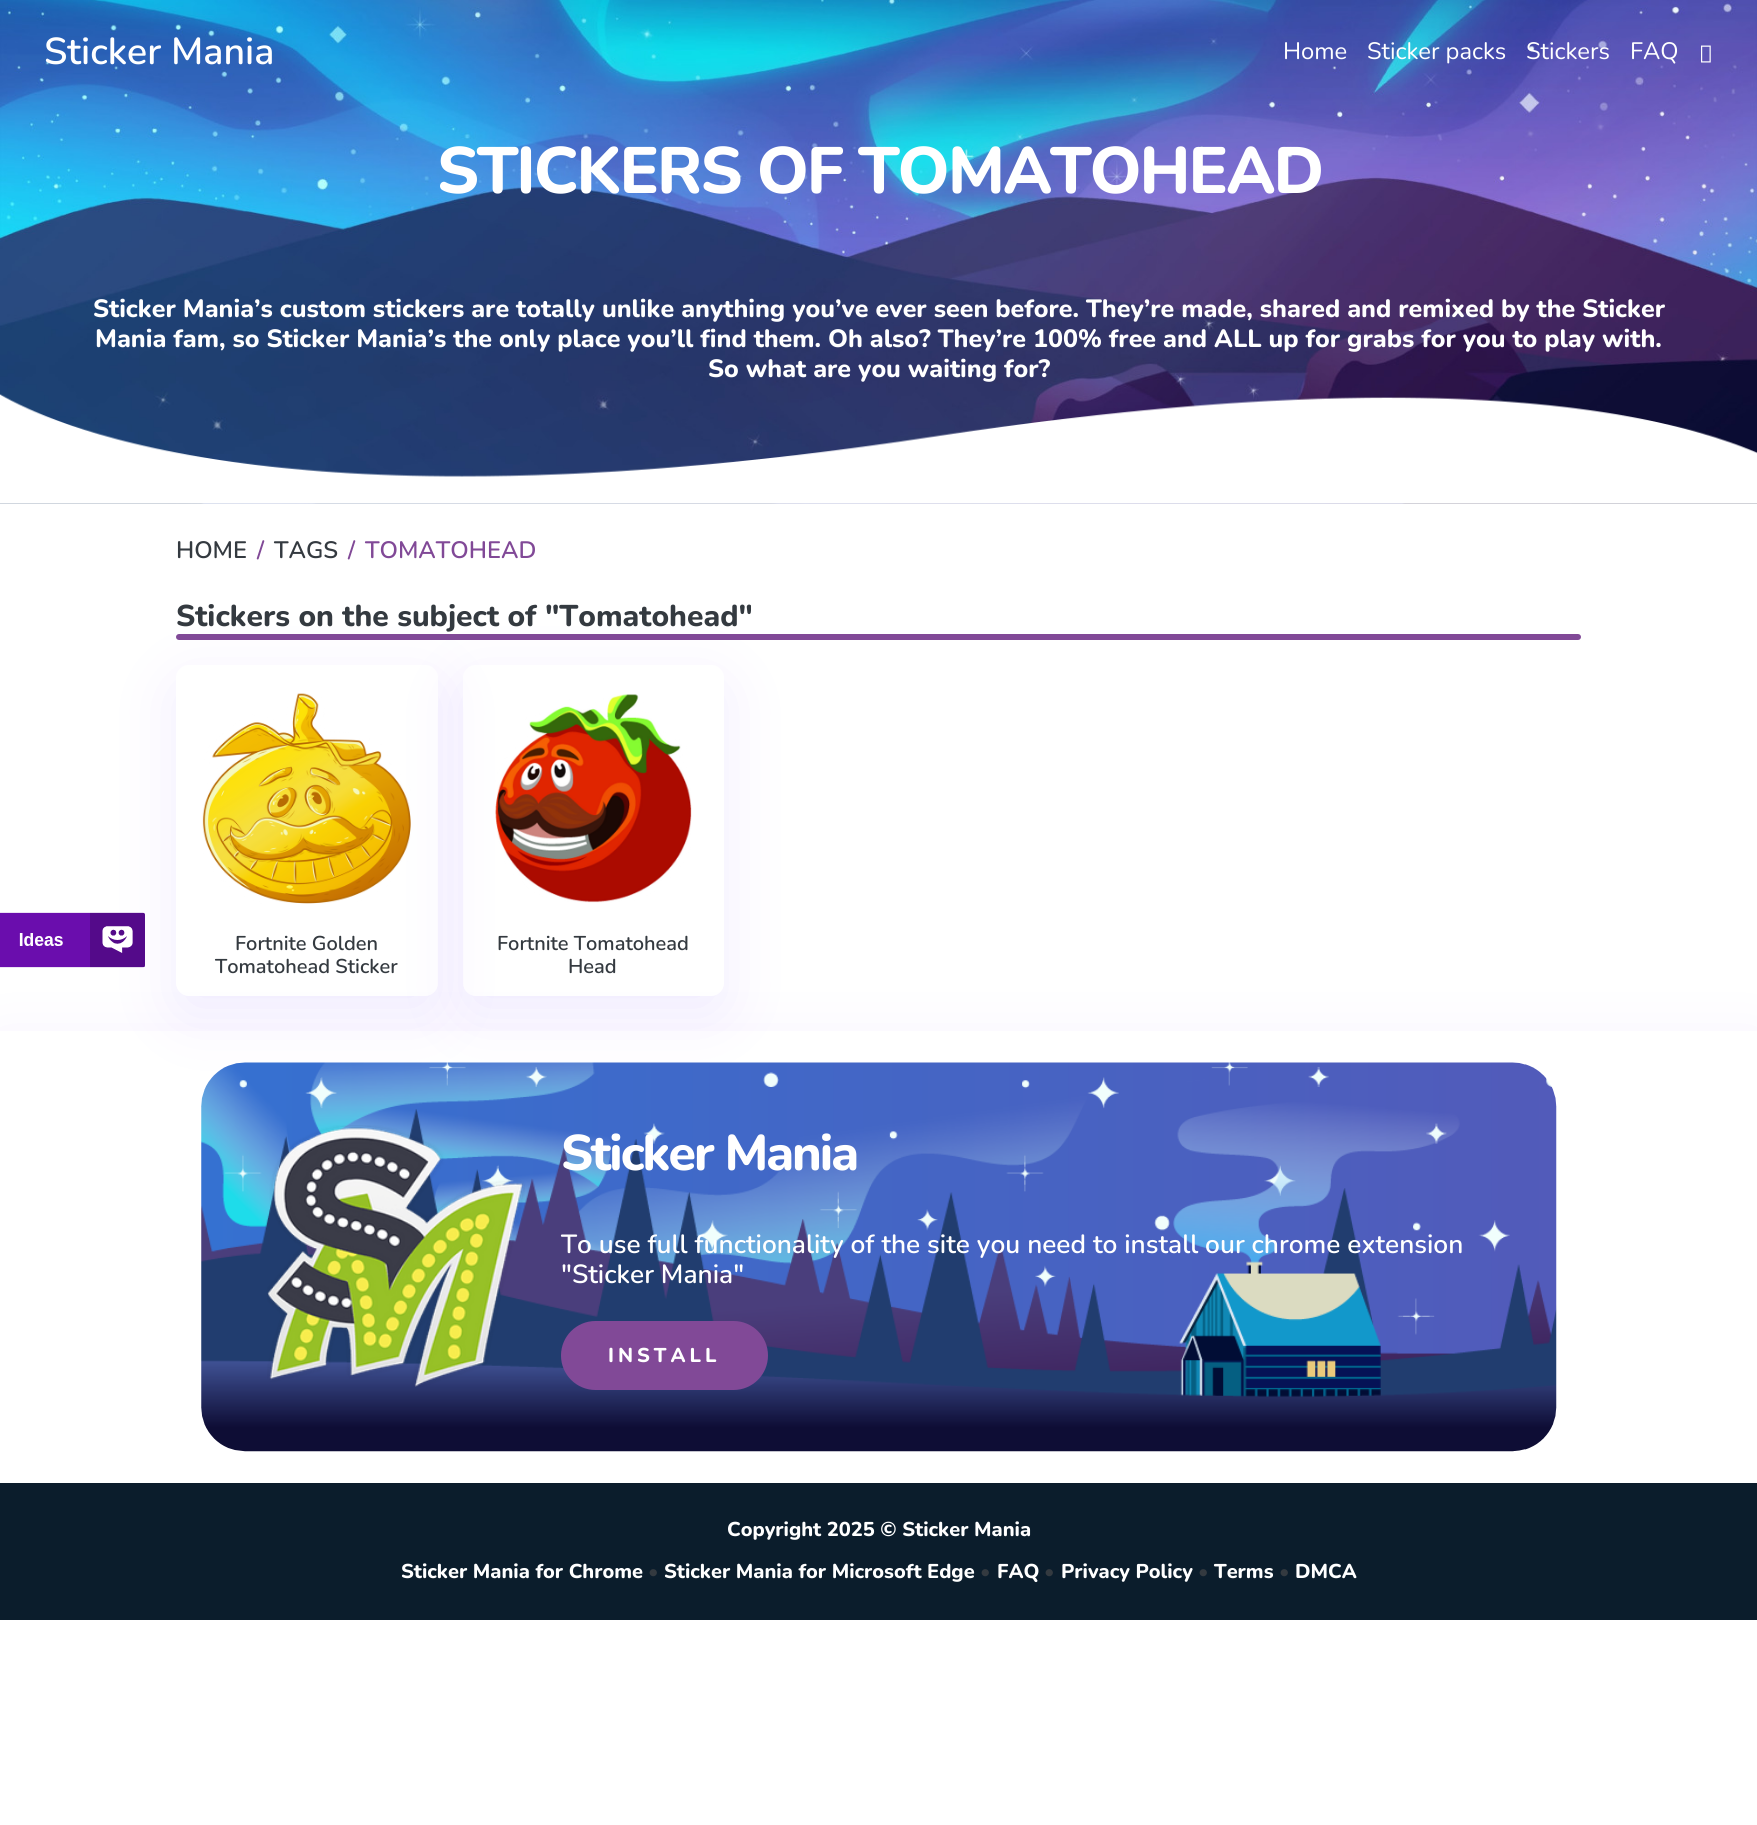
import math
import cairocffi as cairo

surface = cairo.ImageSurface(cairo.FORMAT_RGB24, 1757, 1825)
ctx = cairo.Context(surface)
options = cairo.FontOptions()
options.set_hint_metrics(cairo.HINT_METRICS_OFF)
options.set_hint_style(cairo.HINT_STYLE_NONE)
ctx.set_font_options(options)
ctx.set_miter_limit(4)


def rgb(r, g, b):
    ctx.set_source_rgb(r / 255, g / 255, b / 255)


def face(family, size, italic, bold):
    ctx.select_font_face(family, cairo.FONT_SLANT_ITALIC if italic else cairo.FONT_SLANT_NORMAL, cairo.FONT_WEIGHT_BOLD if bold else cairo.FONT_WEIGHT_NORMAL)
    ctx.set_font_size(size)


def label(x, y, s):
    ctx.move_to(x, y)
    ctx.show_text(s)


def tracked(x, y, s, letter, word):
    ctx.move_to(x, y)
    for ch in s:
        ctx.show_text(ch)
        ctx.rel_move_to(letter + word * (ch == ' '), 0)


def rect(x, y, w, h):
    ctx.rectangle(x, y, w, h)
    ctx.fill()


def rrect(x, y, w, h, r):
    ctx.new_sub_path()
    for i, (u, v) in enumerate([(x + w - r, y + h - r), (x + r, y + h - r), (x + r, y + r), (x + w - r, y + r)]):
        ctx.arc(u, v, r, i * math.pi / 2, (i + 1) * math.pi / 2)
    ctx.close_path()


def soft_shadow(x, y, w, h, r, blur, alpha):
    ctx.push_group_with_content(cairo.CONTENT_ALPHA)
    ctx.set_operator(cairo.OPERATOR_SOURCE)
    for i in range(15, -16, -2):
        e = blur * i / 6
        if min(w, h) + 2 * e > 0:
            ctx.set_source_rgba(0, 0, 0, alpha * math.erfc((i - 1) / 8.5) / 2)
            rrect(x - e, y - e, w + 2 * e, h + 2 * e, max(0, min(r + e + blur * .6, min(w, h) / 2 + e)))
            ctx.fill()
    ctx.mask(ctx.pop_group())


def image(path, x, y, w, h):
    ctx.save()
    ctx.set_source_surface(cairo.ImageSurface.create_from_png(path), x, y)
    ctx.rectangle(x, y, w, h)
    ctx.fill()
    ctx.restore()


rgb(255, 255, 255)
ctx.paint()
image('image1.png', 0, 0, 1757, 504)
face('Nunito SemiBold', 37.5, 0, 0)
rgb(255, 255, 255)
label(44, 64, 'Sticker Mania')
face('Nunito', 23.75, 0, 0)
label(1283, 59, 'Home')
label(1367, 59, 'Sticker packs')
label(1526, 59, 'Stickers')
label(1630, 59, 'FAQ')
image('image0.png', 1701, 45, 10, 18)
face('Nunito ExtraBold', 65.4, 0, 0)
tracked(437, 193, 'STICKERS OF TOMATOHEAD', -2, 0)
face('Nunito ExtraBold', 25, 0, 0)
label(93, 317, 'Sticker Mania’s custom stickers are totally unlike anything you’ve ever seen before. They’re made, shared and remixed by the Sticker')
label(95, 347, 'Mania fam, so Sticker Mania’s the only place you’ll find them. Oh also? They’re 100% free and ALL up for grabs for you to play with.')
label(708, 377, 'So what are you waiting for?')
image('image2.png', 0, 394, 1757, 110)
face('Nunito SemiBold', 23.75, 0, 0)
rgb(52, 58, 64)
label(176, 558, 'HOME')
rgb(129, 73, 151)
label(257, 558, '/')
rgb(52, 58, 64)
label(274, 558, 'TAGS')
rgb(129, 73, 151)
label(348, 558, '/')
label(365, 558, 'TOMATOHEAD')
rrect(176, 634, 1405, 6, 3)
ctx.fill()
ctx.save()
ctx.set_fill_rule(cairo.FILL_RULE_EVEN_ODD)
ctx.new_path()
ctx.move_to(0, 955)
ctx.line_to(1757, 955)
ctx.line_to(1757, 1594)
ctx.line_to(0, 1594)
ctx.close_path()
ctx.move_to(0, 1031)
ctx.line_to(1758, 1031)
ctx.line_to(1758, 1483)
ctx.line_to(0, 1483)
ctx.close_path()
ctx.clip()
rgb(108, 56, 252)
soft_shadow(0, 1049, 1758, 451, 0, 31, 0.1)
ctx.restore()
image('image6.png', 201, 1062, 1356, 390)
ctx.save()
ctx.set_fill_rule(cairo.FILL_RULE_EVEN_ODD)
ctx.new_path()
ctx.move_to(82, 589)
ctx.line_to(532, 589)
ctx.line_to(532, 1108)
ctx.line_to(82, 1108)
ctx.close_path()
ctx.move_to(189, 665)
ctx.line_to(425, 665)
ctx.curve_to(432, 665, 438, 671, 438, 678)
ctx.line_to(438, 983)
ctx.curve_to(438, 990, 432, 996, 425, 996)
ctx.line_to(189, 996)
ctx.curve_to(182, 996, 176, 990, 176, 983)
ctx.line_to(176, 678)
ctx.curve_to(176, 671, 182, 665, 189, 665)
ctx.close_path()
ctx.clip()
rgb(108, 56, 252)
soft_shadow(176, 683, 262, 331, 13, 31, 0.1)
ctx.restore()
image('image3.png', 0, 912, 145, 56)
face('Nunito ExtraBold', 30, 0, 0)
rgb(52, 58, 64)
label(176, 626, 'Stickers on the subject of "Tomatohead"')
image('image4.png', 202, 693, 209, 211)
ctx.save()
ctx.set_fill_rule(cairo.FILL_RULE_EVEN_ODD)
ctx.new_path()
ctx.move_to(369, 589)
ctx.line_to(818, 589)
ctx.line_to(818, 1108)
ctx.line_to(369, 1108)
ctx.close_path()
ctx.move_to(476, 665)
ctx.line_to(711, 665)
ctx.curve_to(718, 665, 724, 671, 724, 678)
ctx.line_to(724, 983)
ctx.curve_to(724, 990, 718, 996, 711, 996)
ctx.line_to(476, 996)
ctx.curve_to(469, 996, 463, 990, 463, 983)
ctx.line_to(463, 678)
ctx.curve_to(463, 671, 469, 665, 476, 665)
ctx.close_path()
ctx.clip()
rgb(108, 56, 252)
soft_shadow(463, 683, 261, 331, 13, 31, 0.1)
ctx.restore()
face('Nunito SemiBold', 20, 0, 0)
label(235, 950, 'Fortnite Golden')
label(215, 973, 'Tomatohead Sticker')
image('image5.png', 495, 694, 197, 209)
label(497, 950, 'Fortnite Tomatohead')
label(568, 973, 'Head')
image('image7.png', 267, 1125, 258, 262)
face('Nunito ExtraBold', 50, 0, 0)
rgb(255, 255, 255)
tracked(561, 1170, 'Sticker Mania', -2, 0)
face('Nunito SemiBold', 26.25, 0, 0)
label(561, 1253, 'To use full functionality of the site you need to install our chrome extension')
label(561, 1283, '"Sticker Mania"')
rgb(129, 73, 151)
rrect(561, 1321, 207, 69, 34.5)
ctx.fill()
face('Nunito ExtraBold', 20, 0, 0)
rgb(255, 255, 255)
tracked(608, 1362, 'INSTALL', 4, 0)
rgb(11, 29, 44)
rect(0, 1483, 1757, 137)
rgb(255, 255, 255)
label(727, 1536, 'Copyright 2025 © Sticker Mania')
label(401, 1578, 'Sticker Mania for Chrome')
rgb(52, 58, 64)
label(648, 1578, '•')
rgb(255, 255, 255)
label(664, 1578, 'Sticker Mania for Microsoft Edge')
rgb(52, 58, 64)
label(980, 1578, '•')
rgb(255, 255, 255)
label(997, 1578, 'FAQ')
rgb(52, 58, 64)
label(1044, 1578, '•')
rgb(255, 255, 255)
label(1061, 1578, 'Privacy Policy')
rgb(52, 58, 64)
label(1198, 1578, '•')
rgb(255, 255, 255)
label(1214, 1578, 'Terms')
rgb(52, 58, 64)
label(1279, 1578, '•')
rgb(255, 255, 255)
label(1295, 1578, 'DMCA')
surface.write_to_png('render.png')
